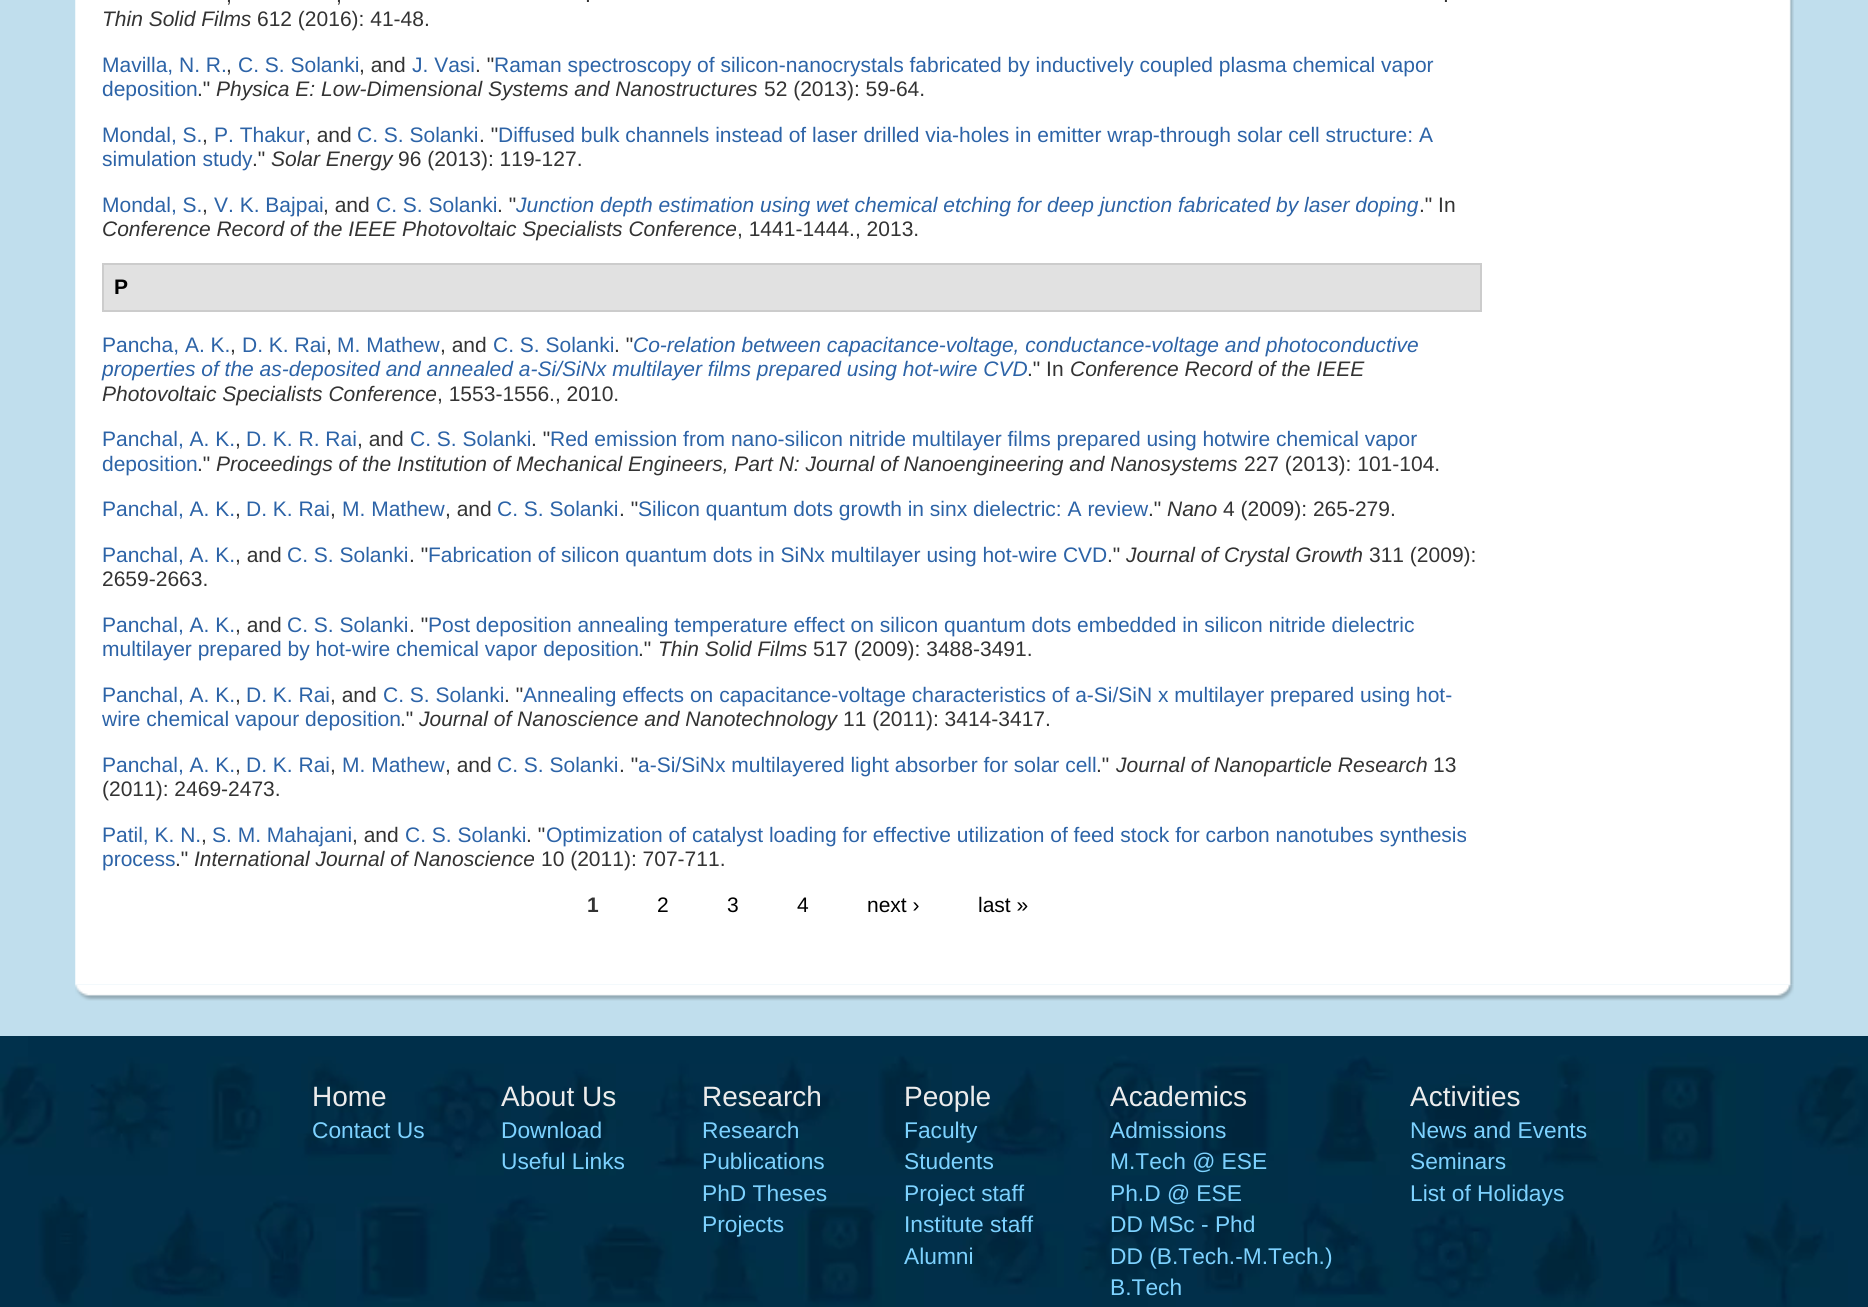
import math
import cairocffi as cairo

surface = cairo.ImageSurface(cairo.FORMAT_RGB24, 1868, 1307)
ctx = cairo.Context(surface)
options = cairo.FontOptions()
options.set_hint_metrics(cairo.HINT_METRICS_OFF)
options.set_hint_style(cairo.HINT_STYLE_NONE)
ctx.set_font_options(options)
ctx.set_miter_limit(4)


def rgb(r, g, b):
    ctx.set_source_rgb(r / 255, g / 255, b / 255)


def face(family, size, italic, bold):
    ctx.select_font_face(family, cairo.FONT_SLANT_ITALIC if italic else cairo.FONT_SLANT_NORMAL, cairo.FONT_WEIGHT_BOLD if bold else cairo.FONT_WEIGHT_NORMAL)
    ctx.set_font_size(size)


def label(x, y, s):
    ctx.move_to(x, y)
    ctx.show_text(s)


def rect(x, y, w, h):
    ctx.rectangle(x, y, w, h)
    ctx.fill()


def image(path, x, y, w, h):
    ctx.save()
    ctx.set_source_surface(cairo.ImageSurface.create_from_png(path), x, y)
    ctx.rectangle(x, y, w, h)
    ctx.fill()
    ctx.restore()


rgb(255, 255, 255)
ctx.paint()
rgb(192, 222, 237)
rect(0, 0, 1868, 1036)
image('image0.png', 75, 984, 1719, 17)
image('image1.png', 75, 0, 1719, 985)
face('Liberation Sans', 21, 0, 0)
rgb(51, 51, 51)
label(226, 2, ',')
label(336, 2, ',')
label(585, 2, '.')
label(1443, 2, '.')
face('Liberation Sans', 21, 1, 0)
label(102, 26, 'Thin Solid Films')
face('Liberation Sans', 21, 0, 0)
label(257, 26, '612 (2016): 41-48.')
rgb(44, 99, 167)
label(102, 72, 'Mavilla, N. R.')
rgb(51, 51, 51)
label(226, 72, ',')
rgb(44, 99, 167)
label(238, 72, 'C. S. Solanki')
rgb(51, 51, 51)
label(359, 72, ', and')
rgb(44, 99, 167)
label(412, 72, 'J. Vasi')
rgb(51, 51, 51)
label(475, 72, '. "')
rgb(44, 99, 167)
label(494, 72, 'Raman spectroscopy of silicon-nanocrystals fabricated by inductively coupled plasma chemical vapor')
label(102, 96, 'deposition')
rgb(51, 51, 51)
label(197, 96, '."')
face('Liberation Sans', 21, 1, 0)
label(216, 96, 'Physica E: Low-Dimensional Systems and Nanostructures')
face('Liberation Sans', 21, 0, 0)
label(764, 96, '52 (2013): 59-64.')
rgb(44, 99, 167)
label(102, 142, 'Mondal, S.')
rgb(51, 51, 51)
label(202, 142, ',')
rgb(44, 99, 167)
label(214, 142, 'P. Thakur')
rgb(51, 51, 51)
label(305, 142, ', and')
rgb(44, 99, 167)
label(357, 142, 'C. S. Solanki')
rgb(51, 51, 51)
label(479, 142, '. "')
rgb(44, 99, 167)
label(498, 142, 'Diffused bulk channels instead of laser drilled via-holes in emitter wrap-through solar cell structure: A')
label(102, 166, 'simulation study')
rgb(51, 51, 51)
label(252, 166, '."')
face('Liberation Sans', 21, 1, 0)
label(271, 166, 'Solar Energy')
face('Liberation Sans', 21, 0, 0)
label(398, 166, '96 (2013): 119-127.')
rgb(44, 99, 167)
label(102, 212, 'Mondal, S.')
rgb(51, 51, 51)
label(202, 212, ',')
rgb(44, 99, 167)
label(214, 212, 'V. K. Bajpai')
rgb(51, 51, 51)
label(323, 212, ', and')
rgb(44, 99, 167)
label(376, 212, 'C. S. Solanki')
rgb(51, 51, 51)
label(497, 212, '. "')
face('Liberation Sans', 21, 1, 0)
rgb(44, 99, 167)
label(516, 212, 'Junction depth estimation using wet chemical etching for deep junction fabricated by laser doping')
face('Liberation Sans', 21, 0, 0)
rgb(51, 51, 51)
label(1419, 212, '." In')
face('Liberation Sans', 21, 1, 0)
label(102, 236, 'Conference Record of the IEEE Photovoltaic Specialists Conference')
face('Liberation Sans', 21, 0, 0)
label(737, 236, ', 1441-1444., 2013.')
rgb(225, 225, 225)
ctx.rectangle(103, 264, 1378, 47)
ctx.fill_preserve()
rgb(204, 204, 204)
ctx.stroke()
face('Liberation Sans', 21, 0, 1)
rgb(0, 0, 0)
label(114, 294, 'P')
face('Liberation Sans', 21, 0, 0)
rgb(44, 99, 167)
label(102, 352, 'Pancha, A. K.')
rgb(51, 51, 51)
label(230, 352, ',')
rgb(44, 99, 167)
label(242, 352, 'D. K. Rai')
rgb(51, 51, 51)
label(326, 352, ',')
rgb(44, 99, 167)
label(337, 352, 'M. Mathew')
rgb(51, 51, 51)
label(440, 352, ', and')
rgb(44, 99, 167)
label(493, 352, 'C. S. Solanki')
rgb(51, 51, 51)
label(614, 352, '. "')
face('Liberation Sans', 21, 1, 0)
rgb(44, 99, 167)
label(633, 352, 'Co-relation between capacitance-voltage, conductance-voltage and photoconductive')
label(102, 376, 'properties of the as-deposited and annealed a-Si/SiNx multilayer films prepared using hot-wire CVD')
face('Liberation Sans', 21, 0, 0)
rgb(51, 51, 51)
label(1027, 376, '." In')
face('Liberation Sans', 21, 1, 0)
label(1070, 376, 'Conference Record of the IEEE')
label(102, 401, 'Photovoltaic Specialists Conference')
face('Liberation Sans', 21, 0, 0)
label(437, 401, ', 1553-1556., 2010.')
rgb(44, 99, 167)
label(102, 446, 'Panchal, A. K.')
rgb(51, 51, 51)
label(235, 446, ',')
rgb(44, 99, 167)
label(246, 446, 'D. K. R. Rai')
rgb(51, 51, 51)
label(357, 446, ', and')
rgb(44, 99, 167)
label(410, 446, 'C. S. Solanki')
rgb(51, 51, 51)
label(531, 446, '. "')
rgb(44, 99, 167)
label(550, 446, 'Red emission from nano-silicon nitride multilayer films prepared using hotwire chemical vapor')
label(102, 471, 'deposition')
rgb(51, 51, 51)
label(197, 471, '."')
face('Liberation Sans', 21, 1, 0)
label(216, 471, 'Proceedings of the Institution of Mechanical Engineers, Part N: Journal of Nanoengineering and Nanosystems')
face('Liberation Sans', 21, 0, 0)
label(1244, 471, '227 (2013): 101-104.')
rgb(44, 99, 167)
label(102, 516, 'Panchal, A. K.')
rgb(51, 51, 51)
label(235, 516, ',')
rgb(44, 99, 167)
label(246, 516, 'D. K. Rai')
rgb(51, 51, 51)
label(330, 516, ',')
rgb(44, 99, 167)
label(342, 516, 'M. Mathew')
rgb(51, 51, 51)
label(445, 516, ', and')
rgb(44, 99, 167)
label(497, 516, 'C. S. Solanki')
rgb(51, 51, 51)
label(619, 516, '. "')
rgb(44, 99, 167)
label(638, 516, 'Silicon quantum dots growth in sinx dielectric: A review')
rgb(51, 51, 51)
label(1148, 516, '."')
face('Liberation Sans', 21, 1, 0)
label(1167, 516, 'Nano')
face('Liberation Sans', 21, 0, 0)
label(1223, 516, '4 (2009): 265-279.')
rgb(44, 99, 167)
label(102, 562, 'Panchal, A. K.')
rgb(51, 51, 51)
label(235, 562, ', and')
rgb(44, 99, 167)
label(287, 562, 'C. S. Solanki')
rgb(51, 51, 51)
label(409, 562, '. "')
rgb(44, 99, 167)
label(428, 562, 'Fabrication of silicon quantum dots in SiNx multilayer using hot-wire CVD')
rgb(51, 51, 51)
label(1107, 562, '."')
face('Liberation Sans', 21, 1, 0)
label(1126, 562, 'Journal of Crystal Growth')
face('Liberation Sans', 21, 0, 0)
label(1369, 562, '311 (2009):')
label(102, 586, '2659-2663.')
rgb(44, 99, 167)
label(102, 632, 'Panchal, A. K.')
rgb(51, 51, 51)
label(235, 632, ', and')
rgb(44, 99, 167)
label(287, 632, 'C. S. Solanki')
rgb(51, 51, 51)
label(409, 632, '. "')
rgb(44, 99, 167)
label(428, 632, 'Post deposition annealing temperature effect on silicon quantum dots embedded in silicon nitride dielectric')
label(102, 656, 'multilayer prepared by hot-wire chemical vapor deposition')
rgb(51, 51, 51)
label(638, 656, '."')
face('Liberation Sans', 21, 1, 0)
label(658, 656, 'Thin Solid Films')
face('Liberation Sans', 21, 0, 0)
label(813, 656, '517 (2009): 3488-3491.')
rgb(44, 99, 167)
label(102, 702, 'Panchal, A. K.')
rgb(51, 51, 51)
label(235, 702, ',')
rgb(44, 99, 167)
label(246, 702, 'D. K. Rai')
rgb(51, 51, 51)
label(330, 702, ', and')
rgb(44, 99, 167)
label(383, 702, 'C. S. Solanki')
rgb(51, 51, 51)
label(504, 702, '. "')
rgb(44, 99, 167)
label(523, 702, 'Annealing effects on capacitance-voltage characteristics of a-Si/SiN x multilayer prepared using hot-')
label(102, 726, 'wire chemical vapour deposition')
rgb(51, 51, 51)
label(400, 726, '."')
face('Liberation Sans', 21, 1, 0)
label(419, 726, 'Journal of Nanoscience and Nanotechnology')
face('Liberation Sans', 21, 0, 0)
label(843, 726, '11 (2011): 3414-3417.')
rgb(44, 99, 167)
label(102, 772, 'Panchal, A. K.')
rgb(51, 51, 51)
label(235, 772, ',')
rgb(44, 99, 167)
label(246, 772, 'D. K. Rai')
rgb(51, 51, 51)
label(330, 772, ',')
rgb(44, 99, 167)
label(342, 772, 'M. Mathew')
rgb(51, 51, 51)
label(445, 772, ', and')
rgb(44, 99, 167)
label(497, 772, 'C. S. Solanki')
rgb(51, 51, 51)
label(619, 772, '. "')
rgb(44, 99, 167)
label(638, 772, 'a-Si/SiNx multilayered light absorber for solar cell')
rgb(51, 51, 51)
label(1096, 772, '."')
face('Liberation Sans', 21, 1, 0)
label(1116, 772, 'Journal of Nanoparticle Research')
face('Liberation Sans', 21, 0, 0)
label(1433, 772, '13')
label(102, 796, '(2011): 2469-2473.')
rgb(44, 99, 167)
label(102, 842, 'Patil, K. N.')
rgb(51, 51, 51)
label(201, 842, ',')
rgb(44, 99, 167)
label(212, 842, 'S. M. Mahajani')
rgb(51, 51, 51)
label(352, 842, ', and')
rgb(44, 99, 167)
label(405, 842, 'C. S. Solanki')
rgb(51, 51, 51)
label(526, 842, '. "')
rgb(44, 99, 167)
label(546, 842, 'Optimization of catalyst loading for effective utilization of feed stock for carbon nanotubes synthesis')
label(102, 866, 'process')
rgb(51, 51, 51)
label(175, 866, '."')
face('Liberation Sans', 21, 1, 0)
label(194, 866, 'International Journal of Nanoscience')
face('Liberation Sans', 21, 0, 0)
label(541, 866, '10 (2011): 707-711.')
face('Liberation Sans', 21, 0, 1)
label(587, 912, '1')
face('Liberation Sans', 21, 0, 0)
rgb(0, 0, 0)
label(657, 912, '2')
label(727, 912, '3')
label(797, 912, '4')
label(867, 912, 'next ›')
label(978, 912, 'last »')
image('image2.png', 0, 1036, 1868, 271)
face('Liberation Sans', 28, 0, 0)
rgb(236, 236, 236)
label(312, 1106, 'Home')
face('Liberation Sans', 22.75, 0, 0)
rgb(125, 210, 255)
label(312, 1138, 'Contact Us')
face('Liberation Sans', 28, 0, 0)
rgb(236, 236, 236)
label(501, 1106, 'About Us')
face('Liberation Sans', 22.75, 0, 0)
rgb(125, 210, 255)
label(501, 1138, 'Download')
label(501, 1169, 'Useful Links')
face('Liberation Sans', 28, 0, 0)
rgb(236, 236, 236)
label(702, 1106, 'Research')
face('Liberation Sans', 22.75, 0, 0)
rgb(125, 210, 255)
label(702, 1138, 'Research')
label(702, 1169, 'Publications')
label(702, 1201, 'PhD Theses')
label(702, 1232, 'Projects')
face('Liberation Sans', 28, 0, 0)
rgb(236, 236, 236)
label(904, 1106, 'People')
face('Liberation Sans', 22.75, 0, 0)
rgb(125, 210, 255)
label(904, 1138, 'Faculty')
label(904, 1169, 'Students')
label(904, 1201, 'Project staff')
label(904, 1232, 'Institute staff')
label(904, 1264, 'Alumni')
face('Liberation Sans', 28, 0, 0)
rgb(236, 236, 236)
label(1110, 1106, 'Academics')
face('Liberation Sans', 22.75, 0, 0)
rgb(125, 210, 255)
label(1110, 1138, 'Admissions')
label(1110, 1169, 'M.Tech @ ESE')
label(1110, 1201, 'Ph.D @ ESE')
label(1110, 1232, 'DD MSc - Phd')
label(1110, 1264, 'DD (B.Tech.-M.Tech.)')
label(1110, 1295, 'B.Tech')
face('Liberation Sans', 28, 0, 0)
rgb(236, 236, 236)
label(1410, 1106, 'Activities')
face('Liberation Sans', 22.75, 0, 0)
rgb(125, 210, 255)
label(1410, 1138, 'News and Events')
label(1410, 1169, 'Seminars')
label(1410, 1201, 'List of Holidays')
surface.write_to_png('render.png')
